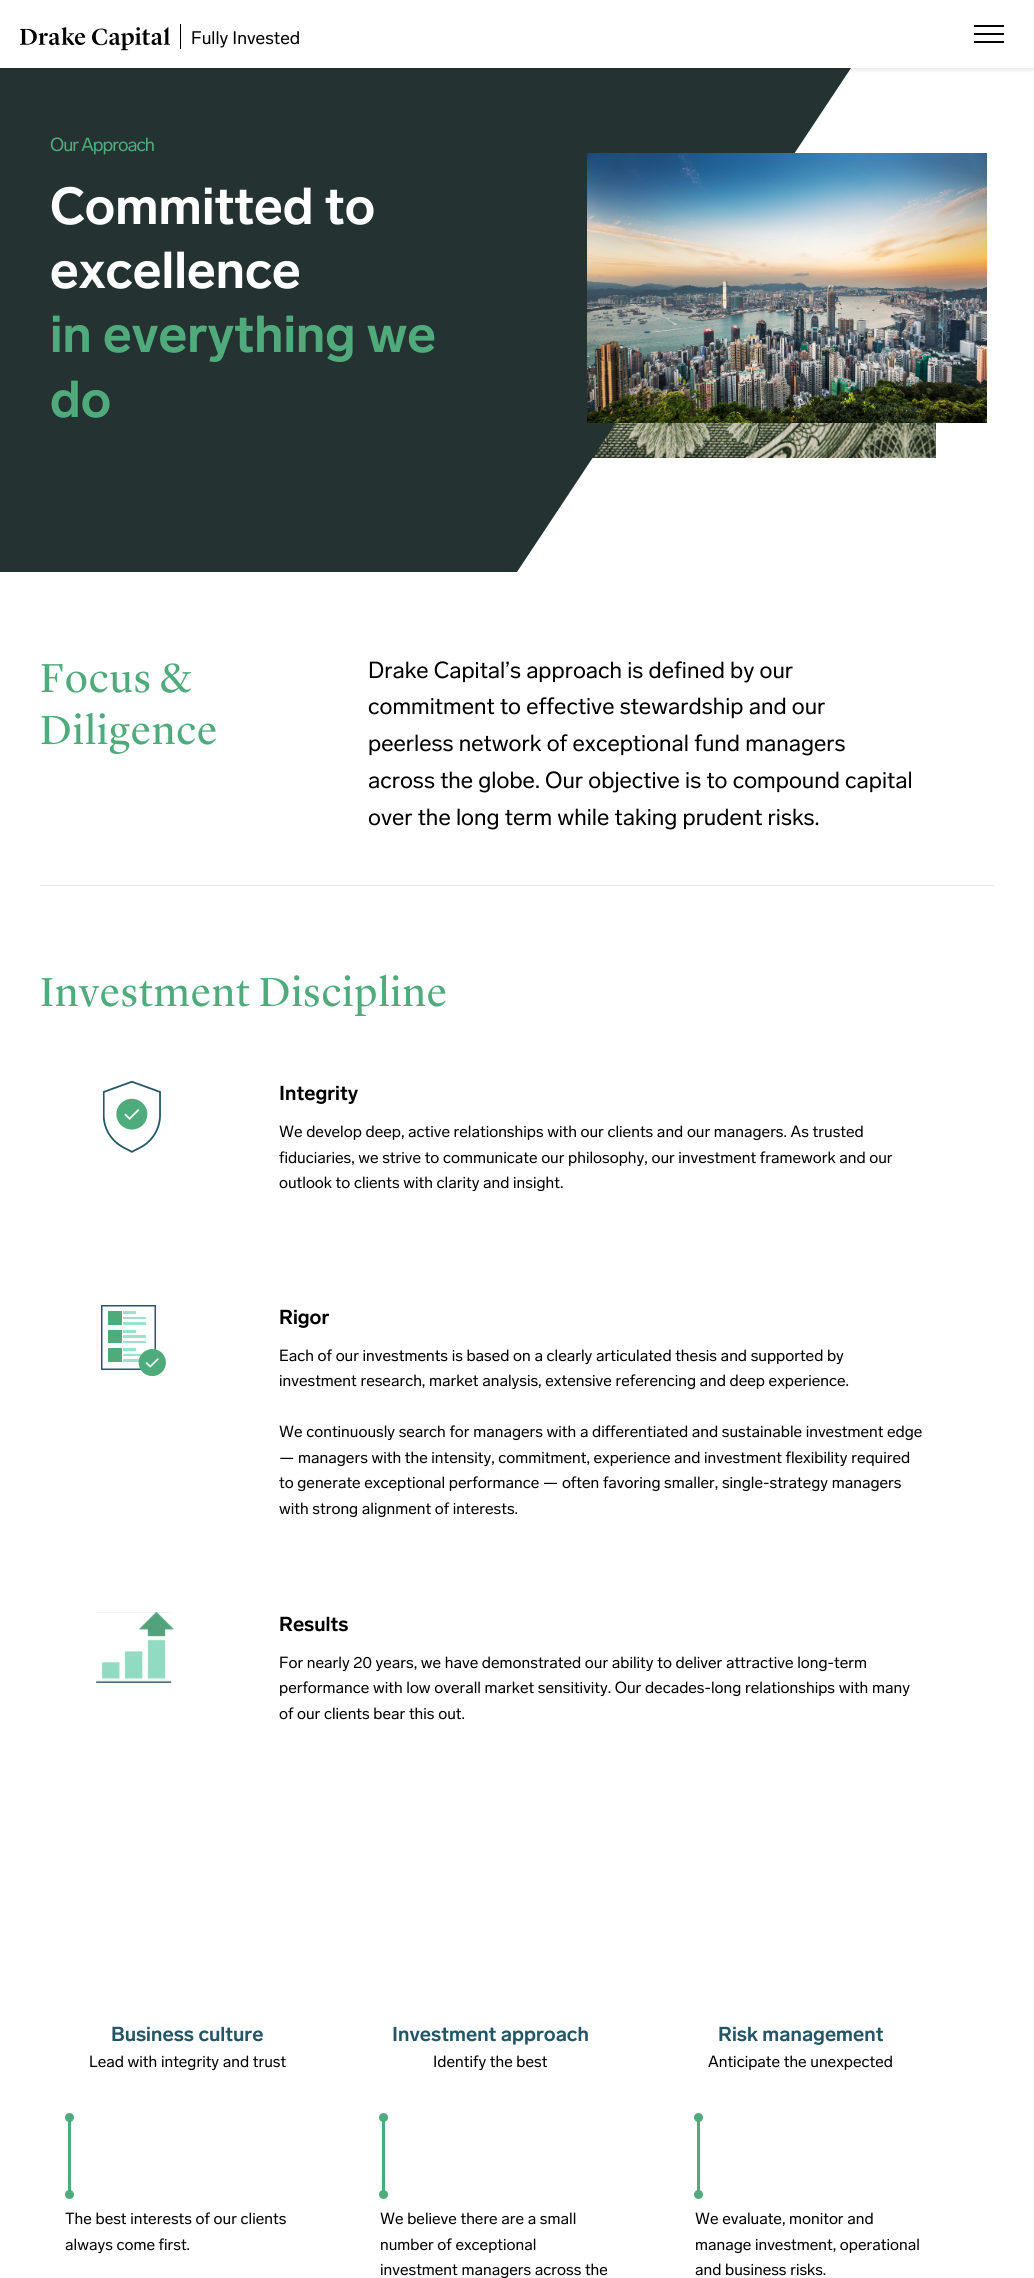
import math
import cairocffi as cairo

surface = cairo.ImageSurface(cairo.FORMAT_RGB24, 1034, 2278)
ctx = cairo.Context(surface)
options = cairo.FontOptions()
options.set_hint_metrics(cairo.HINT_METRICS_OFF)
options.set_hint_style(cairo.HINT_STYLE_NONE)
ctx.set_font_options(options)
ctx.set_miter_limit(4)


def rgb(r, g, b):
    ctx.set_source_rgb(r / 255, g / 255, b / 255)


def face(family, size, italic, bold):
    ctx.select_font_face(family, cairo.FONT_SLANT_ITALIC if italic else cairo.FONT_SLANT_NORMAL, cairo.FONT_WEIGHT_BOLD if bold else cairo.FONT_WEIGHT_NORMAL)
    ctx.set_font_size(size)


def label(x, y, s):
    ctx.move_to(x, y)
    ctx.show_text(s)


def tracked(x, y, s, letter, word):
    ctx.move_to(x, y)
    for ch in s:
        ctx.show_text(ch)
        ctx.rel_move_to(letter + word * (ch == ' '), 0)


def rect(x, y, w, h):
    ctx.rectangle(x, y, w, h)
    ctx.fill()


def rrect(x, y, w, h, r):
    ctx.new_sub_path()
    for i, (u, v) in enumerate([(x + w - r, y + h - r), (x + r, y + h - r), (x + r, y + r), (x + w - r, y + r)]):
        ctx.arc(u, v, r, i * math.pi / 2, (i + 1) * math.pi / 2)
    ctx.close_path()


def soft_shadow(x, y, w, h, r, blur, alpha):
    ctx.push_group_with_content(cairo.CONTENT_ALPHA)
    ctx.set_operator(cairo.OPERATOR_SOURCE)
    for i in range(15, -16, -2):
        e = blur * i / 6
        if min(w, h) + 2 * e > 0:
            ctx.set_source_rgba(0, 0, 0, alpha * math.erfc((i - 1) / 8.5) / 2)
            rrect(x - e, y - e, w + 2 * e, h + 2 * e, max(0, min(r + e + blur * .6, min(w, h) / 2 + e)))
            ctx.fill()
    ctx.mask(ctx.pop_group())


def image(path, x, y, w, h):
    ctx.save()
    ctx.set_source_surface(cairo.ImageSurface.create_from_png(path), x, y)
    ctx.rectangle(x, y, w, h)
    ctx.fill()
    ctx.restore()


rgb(255, 255, 255)
ctx.paint()
image('image2.png', 592, 423, 344, 35)
rgb(37, 50, 50)
ctx.new_path()
ctx.move_to(0, 65)
ctx.line_to(0, 572)
ctx.line_to(517, 572)
ctx.line_to(853, 65)
ctx.close_path()
ctx.fill()
rgb(0, 0, 0)
soft_shadow(0, 1, 1034, 68, 0, 2.5, 0.14)
rgb(255, 255, 255)
rect(0, 0, 1034, 68)
image('image0.png', 20, 27, 150, 24)
rgb(0, 0, 0)
rect(180, 24, 1, 25)
face('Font', 18, 0, 0)
label(191, 44, 'Fully Invested')
rect(974, 41, 30, 2)
rect(974, 25, 30, 2)
rect(974, 33, 30, 2)
image('image1.png', 587, 153, 400, 270)
face('Font', 18.75, 0, 0)
rgb(79, 171, 123)
tracked(50, 151, 'Our Approach', -1, 0)
face('Font', 51.25, 0, 1)
rgb(255, 255, 255)
label(50, 224, 'Committed to')
label(50, 288, 'excellence')
rgb(79, 171, 123)
label(50, 352, 'in everything we')
label(50, 417, 'do')
face('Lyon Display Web', 42, 0, 0)
tracked(40, 692, 'Focus &', 1, 0)
tracked(40, 744, 'Diligence', 1, 0)
face('Font', 23, 0, 0)
rgb(0, 0, 0)
label(368, 678, 'Drake Capital’s approach is defined by our')
label(368, 714, 'commitment to effective stewardship and our')
label(368, 751, 'peerless network of exceptional fund managers')
label(368, 788, 'across the globe. Our objective is to compound capital')
label(368, 825, 'over the long term while taking prudent risks.')
rgb(229, 229, 229)
rect(40, 885, 954, 1)
face('Lyon Display Web', 42, 0, 0)
rgb(79, 171, 123)
tracked(40, 1006, 'Investment Discipline', 1, 0)
image('image3.png', 103, 1081, 58, 72)
face('Font', 20, 0, 1)
rgb(0, 0, 0)
label(279, 1100, 'Integrity')
face('Font', 16, 0, 0)
label(279, 1137, 'We develop deep, active relationships with our clients and our managers. As trusted')
label(279, 1163, 'fiduciaries, we strive to communicate our philosophy, our investment framework and our')
label(279, 1188, 'outlook to clients with clarity and insight.')
image('image4.png', 101, 1305, 65, 71)
face('Font', 20, 0, 1)
label(279, 1324, 'Rigor')
face('Font', 16, 0, 0)
label(279, 1361, 'Each of our investments is based on a clearly articulated thesis and supported by')
label(279, 1386, 'investment research, market analysis, extensive referencing and deep experience.')
label(279, 1437, 'We continuously search for managers with a differentiated and sustainable investment edge')
label(279, 1463, '— managers with the intensity, commitment, experience and investment flexibility required')
label(279, 1488, 'to generate exceptional performance — often favoring smaller, single-strategy managers')
label(279, 1514, 'with strong alignment of interests.')
image('image5.png', 96, 1612, 78, 71)
face('Font', 20, 0, 1)
label(279, 1631, 'Results')
face('Font', 16, 0, 0)
label(279, 1668, 'For nearly 20 years, we have demonstrated our ability to deliver attractive long-term')
label(279, 1693, 'performance with low overall market sensitivity. Our decades-long relationships with many')
label(279, 1719, 'of our clients bear this out.')
face('Font', 20, 0, 1)
rgb(35, 87, 103)
label(111, 2041, 'Business culture')
face('Font', 16, 0, 0)
rgb(0, 0, 0)
label(89, 2067, 'Lead with integrity and trust')
rgb(79, 171, 123)
rect(68, 2116, 3, 80)
ctx.new_path()
ctx.arc(69.5, 2117.5, 4.5, 0, 2 * math.pi)
ctx.fill()
ctx.arc(69.5, 2194.5, 4.5, 0, 2 * math.pi)
ctx.fill()
rgb(0, 0, 0)
label(65, 2224, 'The best interests of our clients')
label(65, 2250, 'always come first.')
face('Font', 20, 0, 1)
rgb(35, 87, 103)
label(392, 2041, 'Investment approach')
face('Font', 16, 0, 0)
rgb(0, 0, 0)
label(433, 2067, 'Identify the best')
rgb(79, 171, 123)
rect(382, 2116, 3, 80)
ctx.new_path()
ctx.arc(383.5, 2117.5, 4.5, 0, 2 * math.pi)
ctx.fill()
ctx.arc(383.5, 2194.5, 4.5, 0, 2 * math.pi)
ctx.fill()
rgb(0, 0, 0)
label(380, 2224, 'We believe there are a small')
label(380, 2250, 'number of exceptional')
label(380, 2275, 'investment managers across the')
face('Font', 20, 0, 1)
rgb(35, 87, 103)
label(718, 2041, 'Risk management')
face('Font', 16, 0, 0)
rgb(0, 0, 0)
label(708, 2067, 'Anticipate the unexpected')
rgb(79, 171, 123)
rect(697, 2116, 3, 80)
ctx.new_path()
ctx.arc(698.5, 2117.5, 4.5, 0, 2 * math.pi)
ctx.fill()
ctx.arc(698.5, 2194.5, 4.5, 0, 2 * math.pi)
ctx.fill()
rgb(0, 0, 0)
label(695, 2224, 'We evaluate, monitor and')
label(695, 2250, 'manage investment, operational')
label(695, 2275, 'and business risks.')
surface.write_to_png('render.png')
